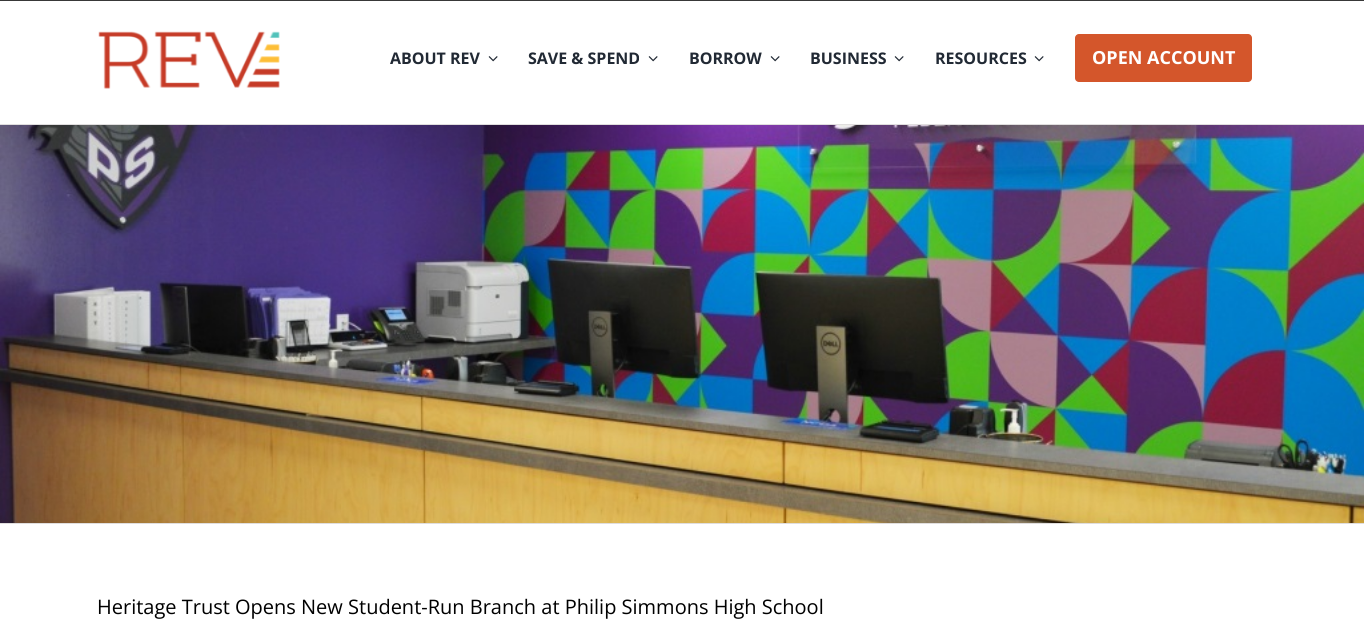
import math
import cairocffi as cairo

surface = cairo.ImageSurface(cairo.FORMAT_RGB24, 1364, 641)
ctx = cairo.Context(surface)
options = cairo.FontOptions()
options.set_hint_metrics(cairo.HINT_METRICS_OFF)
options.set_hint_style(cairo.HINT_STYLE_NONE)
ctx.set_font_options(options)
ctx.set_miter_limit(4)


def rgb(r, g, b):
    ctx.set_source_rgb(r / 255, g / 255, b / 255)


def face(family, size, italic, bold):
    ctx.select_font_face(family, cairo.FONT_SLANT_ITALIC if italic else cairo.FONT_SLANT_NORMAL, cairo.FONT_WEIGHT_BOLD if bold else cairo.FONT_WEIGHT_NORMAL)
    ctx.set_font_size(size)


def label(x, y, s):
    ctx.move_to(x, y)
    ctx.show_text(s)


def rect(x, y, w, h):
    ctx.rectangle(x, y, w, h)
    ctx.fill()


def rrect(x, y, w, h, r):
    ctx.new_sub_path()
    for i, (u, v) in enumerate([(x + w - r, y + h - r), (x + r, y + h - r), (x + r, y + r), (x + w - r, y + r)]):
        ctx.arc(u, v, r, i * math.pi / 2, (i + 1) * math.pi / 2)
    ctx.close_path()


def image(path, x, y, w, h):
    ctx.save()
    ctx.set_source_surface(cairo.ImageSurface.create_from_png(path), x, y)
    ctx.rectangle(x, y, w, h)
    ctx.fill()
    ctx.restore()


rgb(255, 255, 255)
ctx.paint()
rgb(56, 56, 56)
rect(0, 0, 1364, 1)
image('image0.png', 98, 31, 182, 58)
face('Open Sans', 16, 0, 1)
rgb(33, 41, 52)
label(390, 64, 'ABOUT REV')
image('image1.png', 488, 56, 10, 6)
label(528, 64, 'SAVE & SPEND')
image('image1.png', 648, 56, 10, 6)
label(689, 64, 'BORROW')
image('image1.png', 770, 56, 10, 6)
label(810, 64, 'BUSINESS')
image('image1.png', 894, 56, 10, 6)
label(935, 64, 'RESOURCES')
image('image1.png', 1034, 56, 10, 6)
rgb(212, 86, 43)
rrect(1075, 34, 177, 48, 4)
ctx.fill()
face('Open Sans', 18, 0, 1)
rgb(255, 255, 255)
label(1092, 64, 'OPEN ACCOUNT')
image('image2.png', 0, 125, 1364, 398)
rgb(224, 222, 222)
rect(0, 124, 1364, 1)
rect(0, 523, 1364, 1)
face('Open Sans', 20, 0, 0)
rgb(0, 0, 0)
label(97, 614, 'Heritage Trust Opens New Student-Run Branch at Philip Simmons High School')
surface.write_to_png('render.png')
